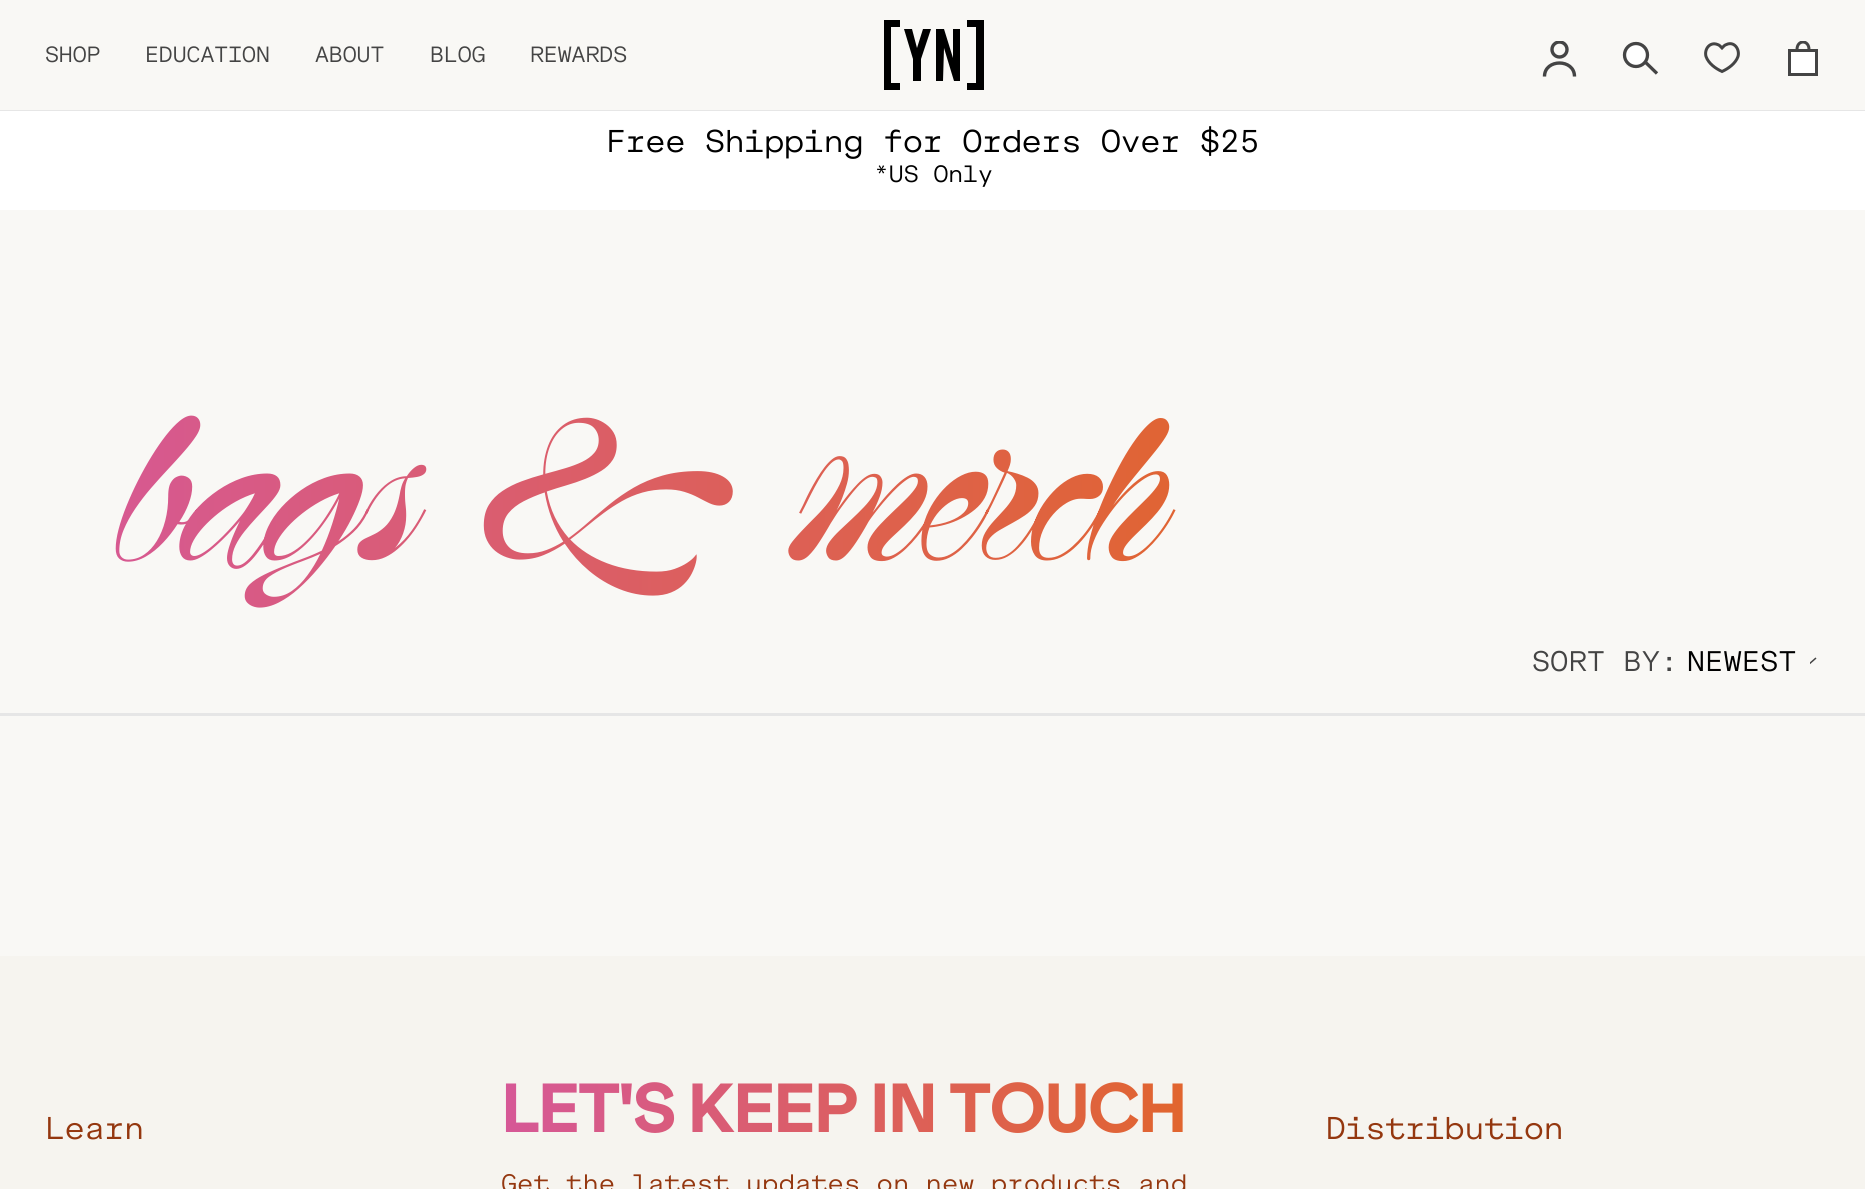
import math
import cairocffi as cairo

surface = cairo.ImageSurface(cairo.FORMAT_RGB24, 1865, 1189)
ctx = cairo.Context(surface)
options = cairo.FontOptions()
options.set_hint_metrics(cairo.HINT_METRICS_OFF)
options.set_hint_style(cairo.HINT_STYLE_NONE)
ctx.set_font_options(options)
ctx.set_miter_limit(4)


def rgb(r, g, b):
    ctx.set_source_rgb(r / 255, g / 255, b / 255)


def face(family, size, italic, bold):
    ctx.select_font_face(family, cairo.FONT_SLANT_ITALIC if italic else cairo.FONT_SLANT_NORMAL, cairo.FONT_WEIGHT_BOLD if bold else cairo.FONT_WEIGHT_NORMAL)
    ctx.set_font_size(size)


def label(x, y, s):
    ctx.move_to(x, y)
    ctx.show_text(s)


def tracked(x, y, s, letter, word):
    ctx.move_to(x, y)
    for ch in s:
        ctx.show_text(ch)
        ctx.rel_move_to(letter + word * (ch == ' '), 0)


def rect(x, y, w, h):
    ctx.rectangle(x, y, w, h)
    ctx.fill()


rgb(249, 248, 245)
ctx.paint()
rgb(230, 230, 230)
rect(0, 110, 1865, 1)
face('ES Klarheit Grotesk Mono', 21, 0, 0)
rgb(68, 68, 68)
label(45, 62, 'SHOP')
label(145, 62, 'EDUCATION')
label(315, 62, 'ABOUT')
label(430, 62, 'BLOG')
label(530, 62, 'REWARDS')
rgb(0, 0, 0)
ctx.new_path()
ctx.move_to(921, 81)
ctx.line_to(913, 81)
ctx.line_to(913, 59)
ctx.line_to(904, 29)
ctx.line_to(912, 29)
ctx.line_to(917, 48)
ctx.line_to(923, 29)
ctx.line_to(931, 29)
ctx.line_to(921, 59)
ctx.close_path()
ctx.move_to(936, 81)
ctx.line_to(936, 29)
ctx.line_to(944, 29)
ctx.line_to(953, 58)
ctx.line_to(953, 29)
ctx.line_to(960, 29)
ctx.line_to(960, 81)
ctx.line_to(954, 81)
ctx.line_to(944, 48)
ctx.line_to(943, 81)
ctx.close_path()
ctx.move_to(900, 27)
ctx.line_to(891, 27)
ctx.line_to(891, 83)
ctx.line_to(900, 83)
ctx.line_to(900, 90)
ctx.line_to(884, 90)
ctx.line_to(884, 20)
ctx.line_to(900, 20)
ctx.close_path()
ctx.move_to(967, 20)
ctx.line_to(984, 20)
ctx.line_to(984, 90)
ctx.line_to(967, 90)
ctx.line_to(967, 83)
ctx.line_to(976, 83)
ctx.line_to(976, 27)
ctx.line_to(967, 27)
ctx.close_path()
ctx.fill()
ctx.new_path()
ctx.move_to(1574.5, 76.5)
ctx.curve_to(1574.5, 58.5, 1544.5, 58.5, 1544.5, 76.5)
rgb(68, 68, 68)
ctx.set_line_width(3.4)
ctx.stroke()
ctx.save()
ctx.rectangle(1542, 41, 36, 36)
ctx.clip()
ctx.arc(1559.5, 49.5, 7.5, 0, 2 * math.pi)
ctx.stroke()
ctx.restore()
ctx.new_path()
ctx.move_to(1638, 55)
ctx.line_to(1657, 73.5)
ctx.set_line_width(3.3)
ctx.stroke()
rgb(255, 255, 255)
ctx.arc(1636, 55, 11.5, 0, 2 * math.pi)
ctx.fill_preserve()
rgb(68, 68, 68)
ctx.stroke()
ctx.new_path()
ctx.move_to(1722, 71.5)
ctx.curve_to(1715.5, 68.5, 1708.5, 63.5, 1706, 56.5)
ctx.curve_to(1704, 49, 1710, 41.5, 1717.5, 44.5)
ctx.curve_to(1719.5, 45, 1720.5, 46.5, 1722, 48)
ctx.curve_to(1723.5, 46.5, 1724.5, 45, 1726.5, 44.5)
ctx.curve_to(1734, 41, 1740, 49, 1738, 56.5)
ctx.curve_to(1735.5, 63.5, 1728.5, 68.5, 1722, 71.5)
ctx.close_path()
ctx.set_line_width(3)
ctx.stroke()
ctx.save()
ctx.rectangle(1785, 41, 36, 36)
ctx.clip()
ctx.new_path()
ctx.move_to(1809, 49.5)
ctx.curve_to(1809, 59.5, 1797, 59.5, 1797, 49.5)
ctx.curve_to(1797, 39.5, 1809, 39.5, 1809, 49.5)
ctx.close_path()
ctx.stroke()
ctx.restore()
rgb(255, 255, 255)
rect(1791, 52, 24, 21)
ctx.new_path()
ctx.move_to(1789.5, 50.5)
ctx.line_to(1816.5, 50.5)
ctx.line_to(1816.5, 74.5)
ctx.line_to(1789.5, 74.5)
ctx.close_path()
rgb(68, 68, 68)
ctx.stroke()
face('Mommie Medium', 300, 0, 0)
gradient = cairo.LinearGradient(45, 484, 1235, 484)
gradient.add_color_stop_rgba(0, 0.839, 0.345, 0.592, 1)
gradient.add_color_stop_rgba(1, 0.882, 0.396, 0.18, 1)
ctx.set_source(gradient)
label(116, 559, 'bags & merch')
face('ES Klarheit Grotesk Mono', 27, 0, 0)
rgb(68, 68, 68)
tracked(1532, 671, 'SORT BY:', 0.5, 0)
rgb(0, 0, 0)
tracked(1687, 671, 'NEWEST', 0.5, 0)
ctx.save()
ctx.new_path()
ctx.move_to(1817, 656)
ctx.line_to(1817, 671)
ctx.line_to(1810, 671)
ctx.line_to(1810, 656)
ctx.close_path()
ctx.clip()
ctx.new_path()
ctx.move_to(1816, 658)
ctx.line_to(1804.5, 668)
ctx.line_to(1793, 658)
rgb(68, 68, 68)
ctx.set_line_width(1.5)
ctx.stroke()
ctx.restore()
rgb(230, 230, 230)
rect(0, 713, 1865, 3)
rgb(246, 244, 239)
rect(0, 956, 1865, 233)
face('ES Klarheit Grotesk Mono', 30, 0, 0)
rgb(148, 55, 15)
label(45, 1139, 'Learn')
face('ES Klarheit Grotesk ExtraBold', 66, 0, 0)
gradient = cairo.LinearGradient(501, 1109, 1186, 1109)
gradient.add_color_stop_rgba(0, 0.839, 0.345, 0.592, 1)
gradient.add_color_stop_rgba(1, 0.882, 0.396, 0.18, 1)
ctx.set_source(gradient)
tracked(501, 1132, 'LET\'S KEEP IN TOUCH', -2, 0)
face('ES Klarheit Grotesk Mono', 24, 0, 0)
rgb(148, 55, 15)
tracked(501, 1192, 'Get the latest updates on new products and', 0.5, 0)
face('ES Klarheit Grotesk Mono', 30, 0, 0)
label(1326, 1139, 'Distribution')
rgb(255, 255, 255)
rect(0, 111, 1865, 99)
rgb(0, 0, 0)
label(606, 152, 'Free Shipping for Orders Over $25')
face('ES Klarheit Grotesk Mono', 22.5, 0, 0)
label(874, 182, '*US Only')
surface.write_to_png('render.png')
